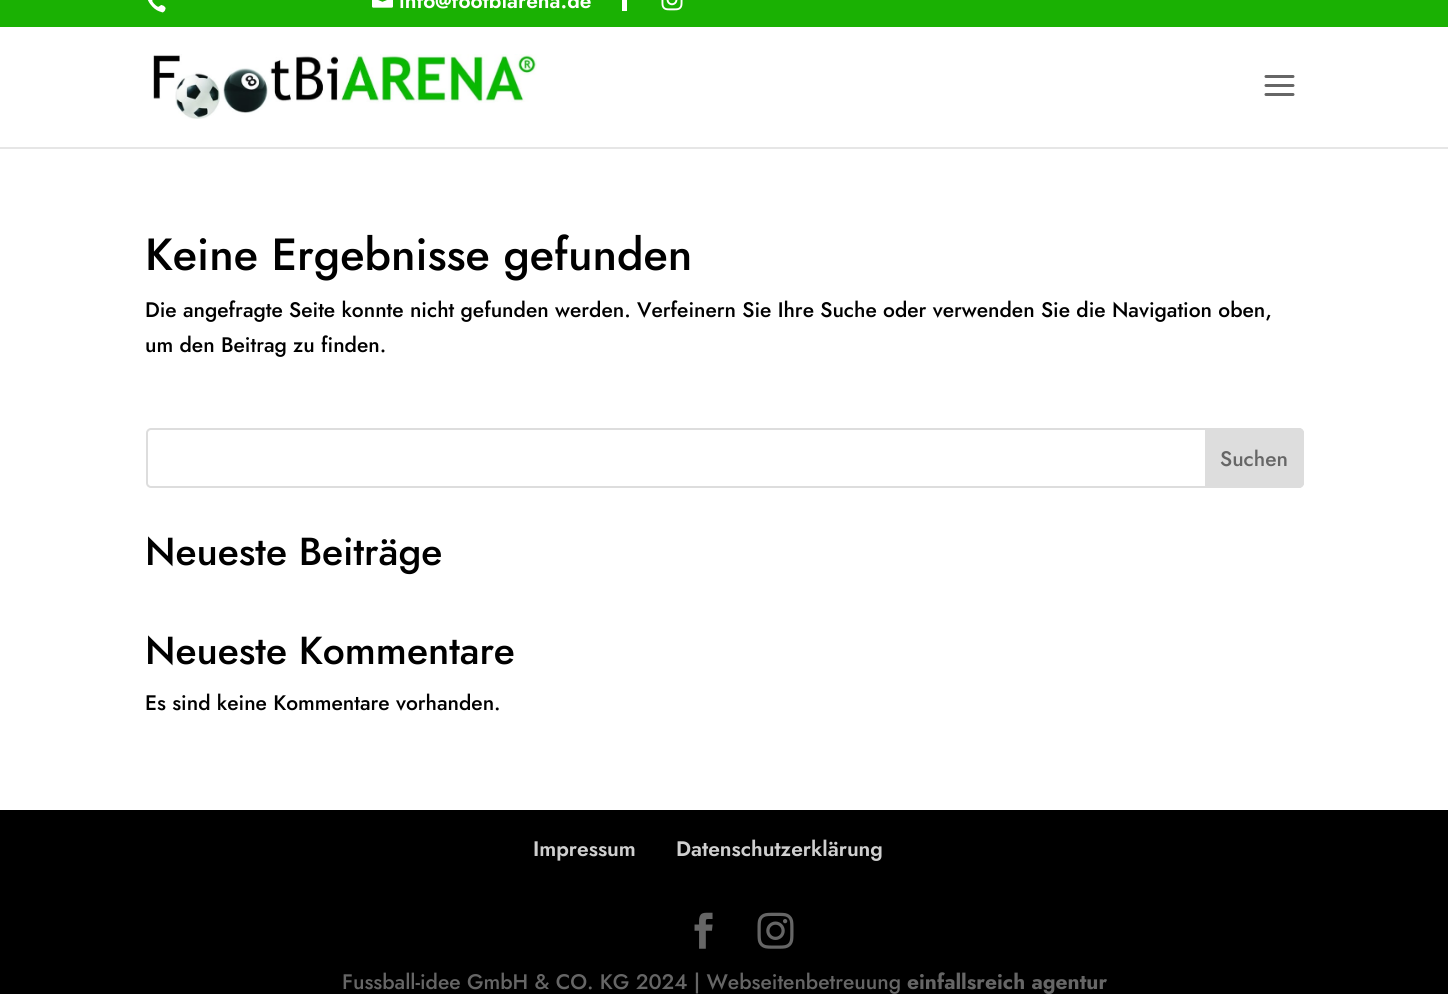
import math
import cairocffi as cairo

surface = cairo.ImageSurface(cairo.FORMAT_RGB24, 1448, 994)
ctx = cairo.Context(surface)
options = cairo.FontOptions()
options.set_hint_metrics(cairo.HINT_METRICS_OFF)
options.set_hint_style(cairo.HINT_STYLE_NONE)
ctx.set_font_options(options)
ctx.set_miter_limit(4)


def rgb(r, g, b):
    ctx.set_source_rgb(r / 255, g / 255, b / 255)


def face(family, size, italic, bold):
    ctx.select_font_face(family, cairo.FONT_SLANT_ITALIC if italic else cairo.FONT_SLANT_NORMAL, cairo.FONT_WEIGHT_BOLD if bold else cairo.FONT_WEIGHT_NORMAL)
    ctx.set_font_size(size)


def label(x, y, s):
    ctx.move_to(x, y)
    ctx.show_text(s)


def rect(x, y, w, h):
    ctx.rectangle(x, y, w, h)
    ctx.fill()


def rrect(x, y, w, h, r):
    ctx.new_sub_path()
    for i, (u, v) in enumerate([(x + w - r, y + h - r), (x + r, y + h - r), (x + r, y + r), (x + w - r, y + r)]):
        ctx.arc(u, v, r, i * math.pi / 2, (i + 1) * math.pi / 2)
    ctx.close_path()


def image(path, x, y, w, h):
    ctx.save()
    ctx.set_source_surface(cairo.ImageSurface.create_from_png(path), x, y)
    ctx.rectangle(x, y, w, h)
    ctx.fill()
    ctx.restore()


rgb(0, 0, 0)
ctx.paint()
rgb(26, 177, 3)
rect(0, 0, 1448, 27)
image('image0.png', 148, 0, 18, 13)
image('image1.png', 372, 0, 21, 8)
face('Jost SemiBold', 21, 0, 0)
rgb(255, 255, 255)
label(399, 8, 'info@footbiarena.de')
rect(622, 0, 5, 11)
image('image2.png', 661, 0, 22, 11)
rgb(230, 230, 230)
rect(0, 147, 1448, 2)
rgb(255, 255, 255)
rect(0, 27, 1448, 120)
image('image3.png', 153, 54, 384, 65)
image('image4.png', 1264, 75, 31, 21)
rect(0, 149, 1448, 661)
face('Jost Medium', 45, 0, 0)
rgb(0, 0, 0)
label(145, 270, 'Keine Ergebnisse gefunden')
face('Jost Medium', 21, 0, 0)
label(145, 317, 'Die angefragte Seite konnte nicht gefunden werden. Verfeinern Sie Ihre Suche oder verwenden Sie die Navigation oben,')
label(145, 352, 'um den Beitrag zu finden.')
rrect(147, 429, 1156, 58, 4)
rgb(221, 221, 221)
ctx.stroke()
ctx.new_path()
ctx.move_to(1206, 429)
ctx.line_to(1299, 429)
ctx.curve_to(1301, 429, 1303, 431, 1303, 433)
ctx.line_to(1303, 483)
ctx.curve_to(1303, 485, 1301, 487, 1299, 487)
ctx.line_to(1206, 487)
ctx.close_path()
ctx.fill_preserve()
ctx.stroke()
rgb(102, 102, 102)
label(1220, 466, 'Suchen')
face('Jost Medium', 39, 0, 0)
rgb(0, 0, 0)
label(145, 565, 'Neueste Beiträge')
label(145, 664, 'Neueste Kommentare')
face('Jost Medium', 21, 0, 0)
label(145, 710, 'Es sind keine Kommentare vorhanden.')
face('Jost SemiBold', 21, 0, 0)
rgb(207, 207, 207)
label(533, 856, 'Impressum')
label(676, 856, 'Datenschutzerklärung')
image('image5.png', 694, 912, 19, 37)
image('image6.png', 757, 912, 37, 37)
face('Jost Medium', 21, 0, 0)
rgb(102, 102, 102)
label(342, 989, 'Fussball-idee GmbH & CO. KG 2024 | Webseitenbetreuung')
face('Jost', 21, 0, 1)
label(907, 989, 'einfallsreich agentur')
surface.write_to_png('render.png')
